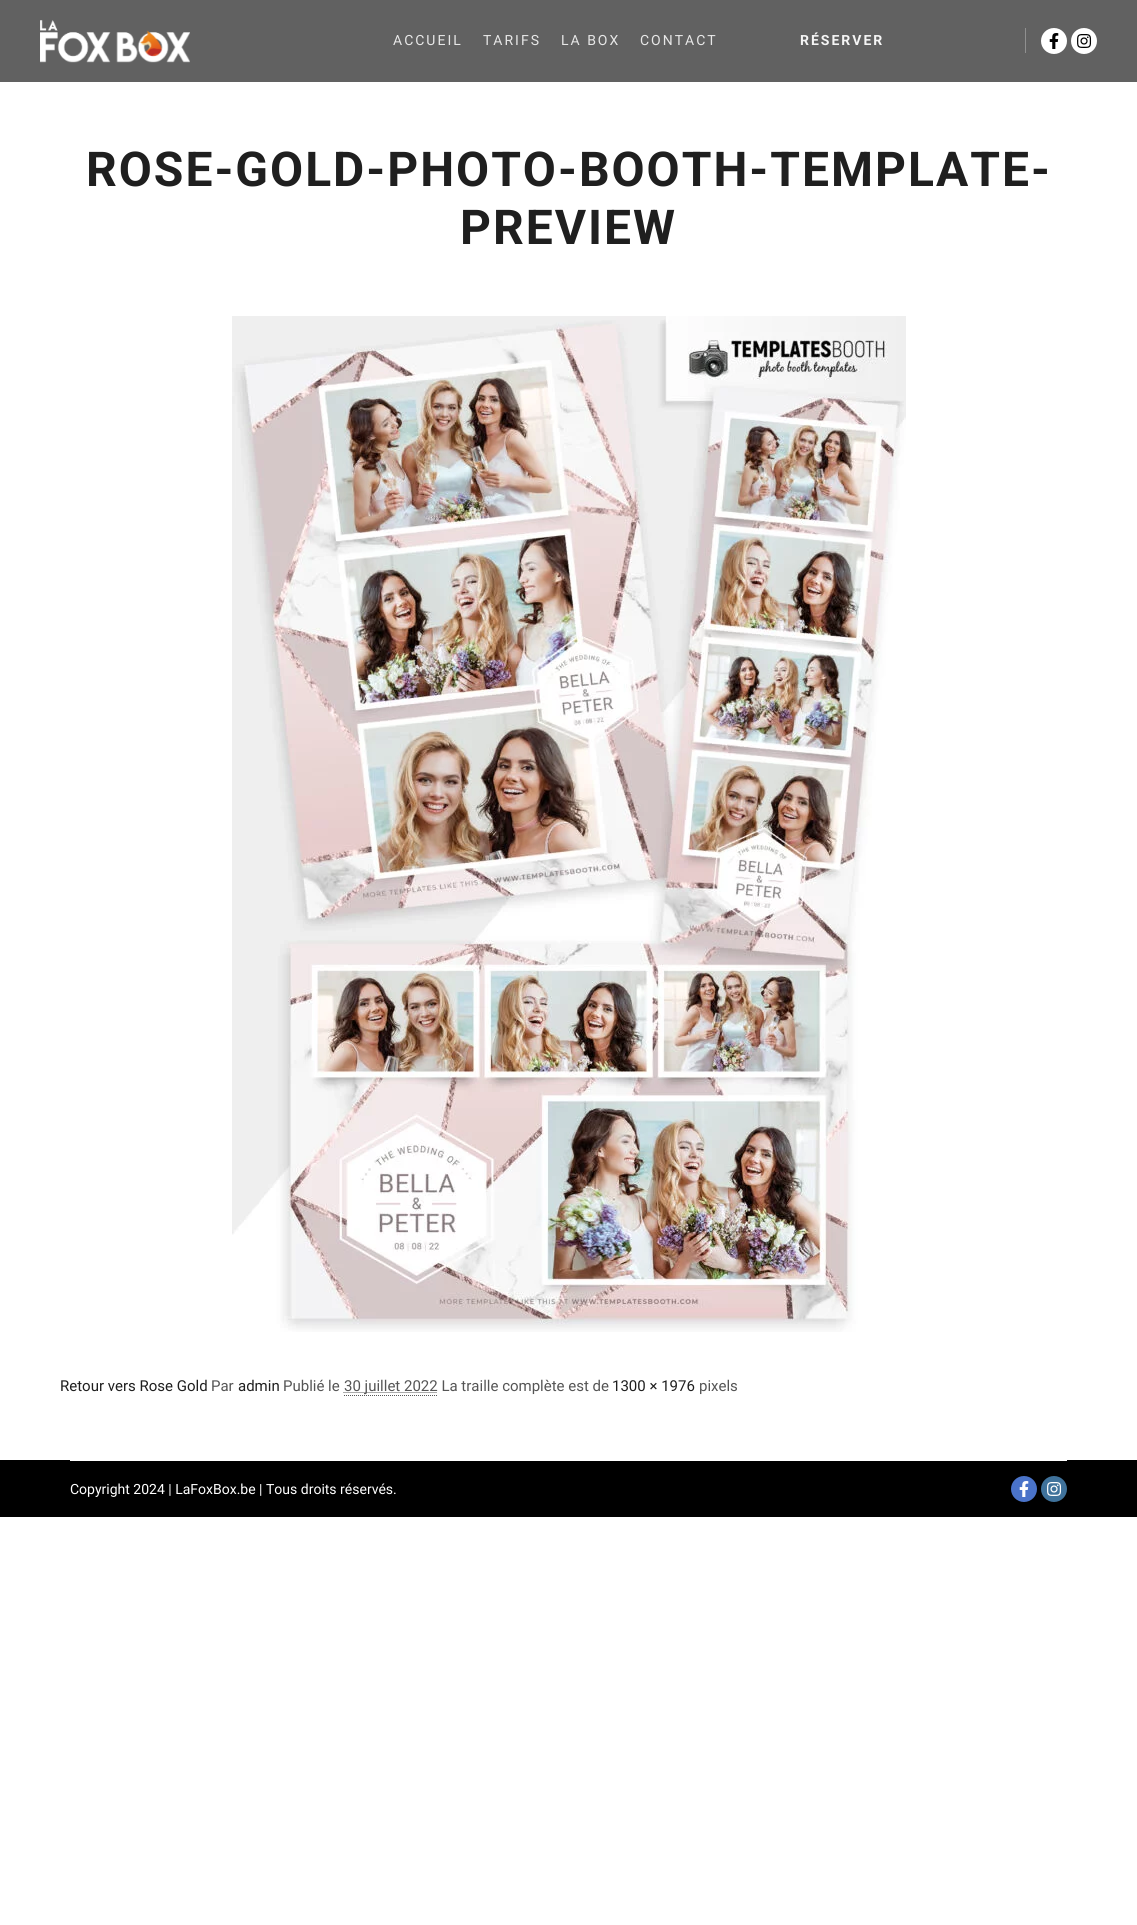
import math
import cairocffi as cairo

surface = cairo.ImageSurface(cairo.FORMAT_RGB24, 1137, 1925)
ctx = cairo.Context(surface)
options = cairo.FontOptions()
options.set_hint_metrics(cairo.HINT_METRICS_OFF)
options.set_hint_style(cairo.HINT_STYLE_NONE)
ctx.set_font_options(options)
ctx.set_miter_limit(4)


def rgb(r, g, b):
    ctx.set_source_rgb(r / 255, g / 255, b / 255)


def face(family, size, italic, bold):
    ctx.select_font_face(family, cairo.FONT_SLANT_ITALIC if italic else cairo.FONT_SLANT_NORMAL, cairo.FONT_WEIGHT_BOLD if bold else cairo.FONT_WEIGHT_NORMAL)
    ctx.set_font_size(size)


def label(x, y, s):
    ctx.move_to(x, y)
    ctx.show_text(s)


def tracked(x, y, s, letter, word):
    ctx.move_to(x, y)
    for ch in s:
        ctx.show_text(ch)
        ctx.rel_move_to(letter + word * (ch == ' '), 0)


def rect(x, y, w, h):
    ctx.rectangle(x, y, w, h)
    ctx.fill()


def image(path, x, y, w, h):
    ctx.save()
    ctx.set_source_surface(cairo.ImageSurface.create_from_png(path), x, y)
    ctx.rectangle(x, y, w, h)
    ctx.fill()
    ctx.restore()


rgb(255, 255, 255)
ctx.paint()
rgb(97, 97, 97)
rect(0, 0, 1137, 82)
image('image0.png', 40, 20, 150, 43)
face('Roboto', 14, 0, 0)
rgb(231, 231, 231)
tracked(393, 45, 'ACCUEIL', 2, 0)
tracked(483, 45, 'TARIFS', 2, 0)
tracked(561, 45, 'LA BOX', 2, 0)
tracked(640, 45, 'CONTACT', 2, 0)
face('Roboto', 14, 0, 1)
rgb(245, 245, 245)
tracked(800, 45, 'RÉSERVER', 2, 0)
rgb(144, 144, 144)
rect(1025, 28, 1, 25)
rgb(255, 255, 255)
ctx.new_path()
ctx.arc(1054, 41, 13, 0, 2 * math.pi)
ctx.fill()
image('image1.png', 1049, 33, 10, 16)
ctx.arc(1084, 41, 13, 0, 2 * math.pi)
ctx.fill()
image('image2.png', 1077, 34, 15, 14)
face('Roboto', 48, 0, 1)
rgb(31, 31, 31)
tracked(86, 186, 'ROSE-GOLD-PHOTO-BOOTH-TEMPLATE-', 2, 0)
tracked(460, 244, 'PREVIEW', 2, 0)
image('image3.png', 232, 316, 674, 1016)
face('Roboto', 15, 0, 0)
label(60, 1391, 'Retour vers Rose Gold')
rgb(85, 85, 85)
label(211, 1391, 'Par')
rgb(31, 31, 31)
label(238, 1391, 'admin')
rgb(85, 85, 85)
label(283, 1391, 'Publié le')
ctx.new_path()
ctx.move_to(343.5, 1392.5)
ctx.line_to(437.5, 1392.5)
ctx.set_line_width(1)
ctx.set_dash([1, 1])
ctx.stroke()
label(344, 1391, '30 juillet 2022 La traille complète est de')
ctx.new_path()
ctx.move_to(344, 1395.5)
ctx.line_to(437, 1395.5)
ctx.stroke()
rgb(31, 31, 31)
label(612, 1391, '1300 × 1976')
rgb(85, 85, 85)
label(699, 1391, 'pixels')
rgb(0, 0, 0)
rect(0, 1460, 1137, 57)
rgb(255, 255, 255)
rect(70, 1460, 997, 1)
face('Roboto', 14, 0, 0)
label(70, 1494, 'Copyright 2024 | LaFoxBox.be | Tous droits réservés.')
rgb(74, 115, 201)
ctx.new_path()
ctx.arc(1024, 1489, 13, 0, 2 * math.pi)
ctx.fill()
image('image4.png', 1019, 1481, 10, 16)
rgb(63, 114, 155)
ctx.arc(1054, 1489, 13, 0, 2 * math.pi)
ctx.fill()
image('image5.png', 1047, 1482, 15, 14)
surface.write_to_png('render.png')
